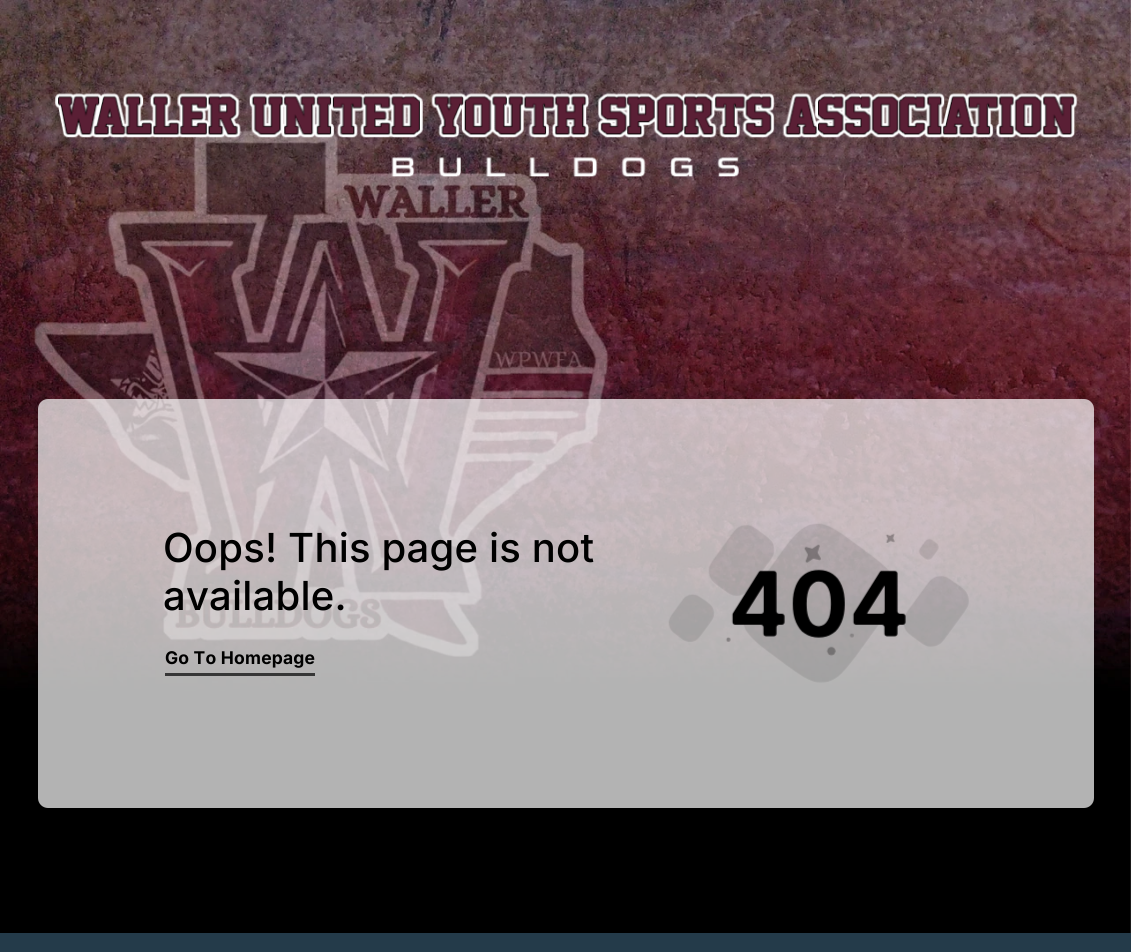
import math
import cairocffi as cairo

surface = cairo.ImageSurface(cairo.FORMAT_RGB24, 1131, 952)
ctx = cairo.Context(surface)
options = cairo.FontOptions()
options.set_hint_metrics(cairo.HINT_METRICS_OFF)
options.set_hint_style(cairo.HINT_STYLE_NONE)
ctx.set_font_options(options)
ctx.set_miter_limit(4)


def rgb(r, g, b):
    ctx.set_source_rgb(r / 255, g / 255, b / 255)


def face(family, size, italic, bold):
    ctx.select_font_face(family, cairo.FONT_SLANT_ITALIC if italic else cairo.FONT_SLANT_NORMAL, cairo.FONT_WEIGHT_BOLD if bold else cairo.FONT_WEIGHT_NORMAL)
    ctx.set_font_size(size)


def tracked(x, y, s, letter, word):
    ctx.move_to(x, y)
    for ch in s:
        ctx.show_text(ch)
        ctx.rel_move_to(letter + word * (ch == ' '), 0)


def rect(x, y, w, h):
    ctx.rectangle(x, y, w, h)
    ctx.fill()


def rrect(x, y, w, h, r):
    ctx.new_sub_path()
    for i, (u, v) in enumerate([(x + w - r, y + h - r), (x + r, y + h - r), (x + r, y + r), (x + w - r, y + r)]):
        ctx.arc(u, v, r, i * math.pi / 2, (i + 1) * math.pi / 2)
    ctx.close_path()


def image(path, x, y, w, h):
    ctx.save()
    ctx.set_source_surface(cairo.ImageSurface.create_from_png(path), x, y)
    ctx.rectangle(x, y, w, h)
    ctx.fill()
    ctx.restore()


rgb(255, 255, 255)
ctx.paint()
image('image0.png', 0, 0, 1131, 933)
image('image1.png', 55, 92, 1023, 85)
ctx.set_source_rgba(1, 1, 1, 0.7)
rrect(38, 399, 1056, 409, 10)
ctx.fill()
face('Inter Medium', 40, 0, 0)
rgb(0, 0, 0)
tracked(163, 562, 'Oops! This page is not', 0.2, 0)
tracked(163, 610, 'available.', 0.2, 0)
face('Inter', 17.5, 0, 1)
tracked(165, 664, 'Go To Homepage', 0.2, 0)
rgb(54, 54, 54)
rect(165, 673, 150, 3)
image('image2.png', 668, 523, 301, 160)
rgb(36, 59, 74)
rect(0, 933, 1131, 19)
surface.write_to_png('render.png')
